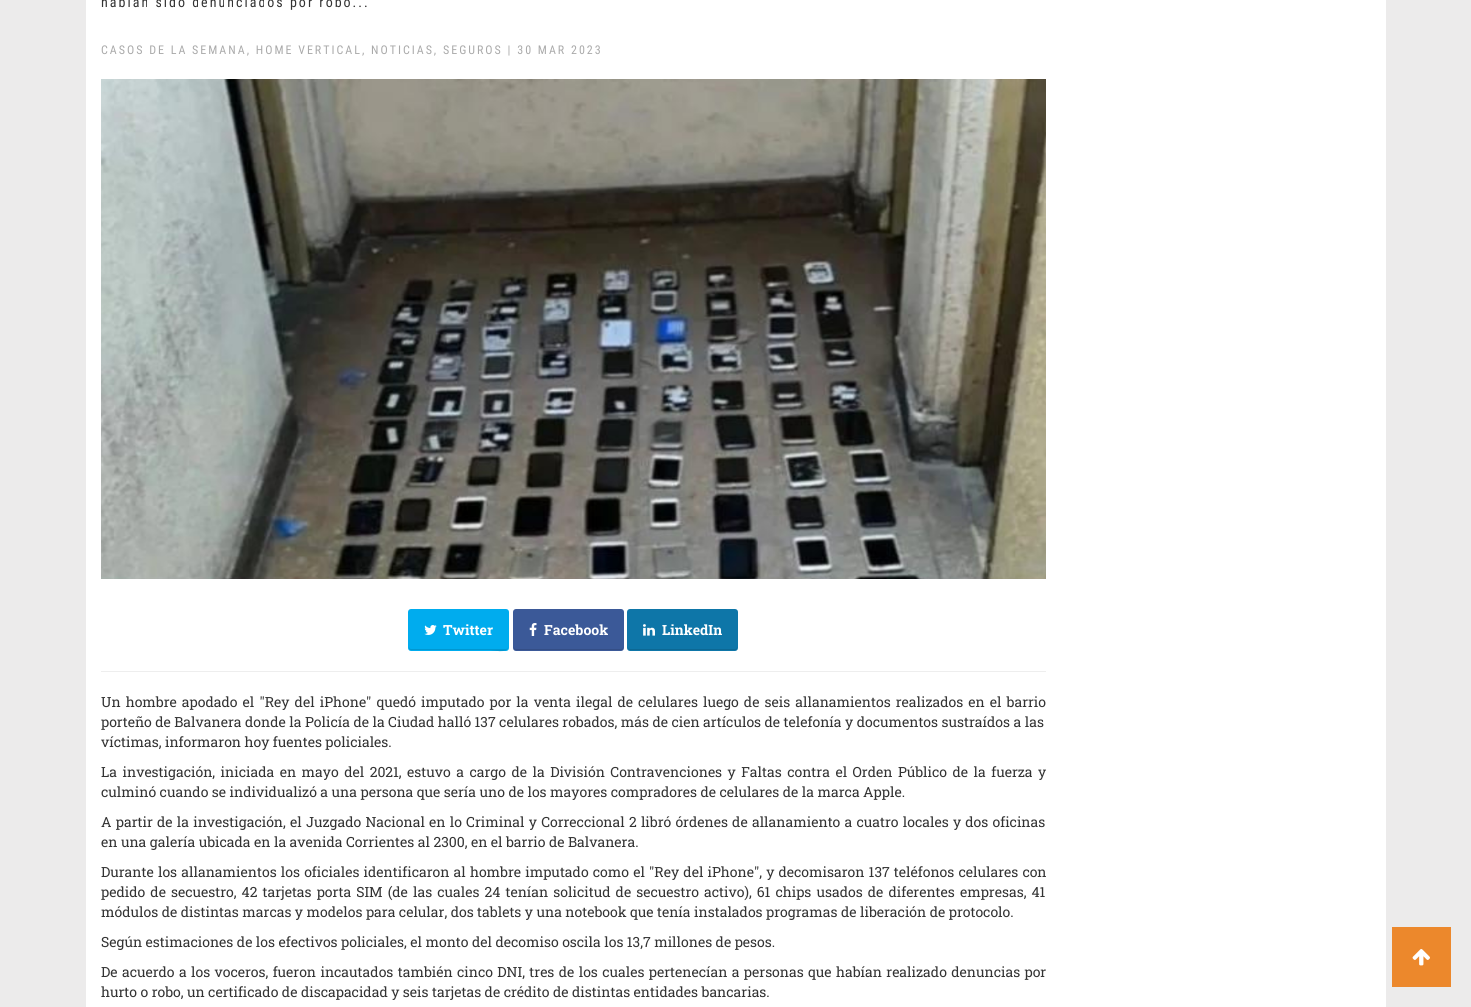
import math
import cairocffi as cairo

surface = cairo.ImageSurface(cairo.FORMAT_RGB24, 1471, 1007)
ctx = cairo.Context(surface)
options = cairo.FontOptions()
options.set_hint_metrics(cairo.HINT_METRICS_OFF)
options.set_hint_style(cairo.HINT_STYLE_NONE)
ctx.set_font_options(options)
ctx.set_miter_limit(4)


def rgb(r, g, b):
    ctx.set_source_rgb(r / 255, g / 255, b / 255)


def face(family, size, italic, bold):
    ctx.select_font_face(family, cairo.FONT_SLANT_ITALIC if italic else cairo.FONT_SLANT_NORMAL, cairo.FONT_WEIGHT_BOLD if bold else cairo.FONT_WEIGHT_NORMAL)
    ctx.set_font_size(size)


def label(x, y, s):
    ctx.move_to(x, y)
    ctx.show_text(s)


def tracked(x, y, s, letter, word):
    ctx.move_to(x, y)
    for ch in s:
        ctx.show_text(ch)
        ctx.rel_move_to(letter + word * (ch == ' '), 0)


def rect(x, y, w, h):
    ctx.rectangle(x, y, w, h)
    ctx.fill()


def rrect(x, y, w, h, r):
    ctx.new_sub_path()
    for i, (u, v) in enumerate([(x + w - r, y + h - r), (x + r, y + h - r), (x + r, y + r), (x + w - r, y + r)]):
        ctx.arc(u, v, r, i * math.pi / 2, (i + 1) * math.pi / 2)
    ctx.close_path()


def image(path, x, y, w, h):
    ctx.save()
    ctx.set_source_surface(cairo.ImageSurface.create_from_png(path), x, y)
    ctx.rectangle(x, y, w, h)
    ctx.fill()
    ctx.restore()


rgb(236, 235, 235)
ctx.paint()
rgb(255, 255, 255)
rect(86, 0, 1300, 1007)
face('Roboto Condensed', 14, 0, 0)
rgb(51, 51, 51)
tracked(101, 7, 'habían sido denunciados por robo...', 2, 0)
face('Roboto Condensed', 12, 0, 0)
rgb(170, 170, 170)
tracked(101, 54, 'CASOS DE LA SEMANA, HOME VERTICAL, NOTICIAS, SEGUROS | 30 MAR 2023', 2, 0)
image('image0.png', 101, 79, 945, 500)
rgb(0, 172, 238)
rrect(408, 609, 101, 42, 3)
ctx.fill()
rgb(0, 151, 209)
ctx.new_path()
ctx.move_to(409, 647)
ctx.curve_to(409, 648, 409, 650, 411, 650)
ctx.line_to(490, 650)
ctx.curve_to(492, 650, 508, 654, 508, 647)
ctx.curve_to(508, 648, 507, 649, 506, 649)
ctx.line_to(411, 649)
ctx.curve_to(410, 649, 409, 648, 409, 647)
ctx.close_path()
ctx.fill()
image('image1.png', 424, 625, 13, 10)
face('Roboto Slab', 14, 0, 1)
rgb(255, 255, 255)
label(443, 635, 'Twitter')
rgb(59, 89, 152)
rrect(513, 609, 111, 42, 3)
ctx.fill()
rgb(52, 78, 134)
ctx.new_path()
ctx.move_to(514, 647)
ctx.curve_to(514, 648, 514, 650, 516, 650)
ctx.line_to(621, 650)
ctx.curve_to(623, 650, 623, 648, 623, 647)
ctx.curve_to(623, 648, 622, 649, 621, 649)
ctx.line_to(516, 649)
ctx.curve_to(515, 649, 514, 648, 514, 647)
ctx.close_path()
ctx.fill()
image('image2.png', 529, 623, 8, 13)
rgb(255, 255, 255)
label(544, 635, 'Facebook')
rgb(14, 118, 168)
rrect(627, 609, 111, 42, 3)
ctx.fill()
rgb(12, 104, 148)
ctx.new_path()
ctx.move_to(628, 647)
ctx.curve_to(628, 648, 628, 650, 630, 650)
ctx.line_to(735, 650)
ctx.curve_to(737, 650, 737, 648, 737, 647)
ctx.curve_to(737, 648, 736, 649, 735, 649)
ctx.line_to(630, 649)
ctx.curve_to(629, 649, 628, 648, 628, 647)
ctx.close_path()
ctx.fill()
image('image3.png', 643, 624, 12, 12)
rgb(255, 255, 255)
label(662, 635, 'LinkedIn')
rgb(238, 238, 238)
rect(101, 671, 945, 1)
face('Roboto Slab', 14, 0, 0)
rgb(51, 51, 51)
tracked(101, 707, 'Un hombre apodado el "Rey del iPhone" quedó imputado por la venta ilegal de celulares luego de seis allanamientos realizados en el barrio', 0, 1.6)
label(101, 727, 'porteño de Balvanera donde la Policía de la Ciudad halló 137 celulares robados, más de cien artículos de telefonía y documentos sustraídos a las')
label(101, 747, 'víctimas, informaron hoy fuentes policiales.')
tracked(101, 777, 'La investigación, iniciada en mayo del 2021, estuvo a cargo de la División Contravenciones y Faltas contra el Orden Público de la fuerza y', 0, 2)
label(101, 797, 'culminó cuando se individualizó a una persona que sería uno de los mayores compradores de celulares de la marca Apple.')
tracked(101, 827, 'A partir de la investigación, el Juzgado Nacional en lo Criminal y Correccional 2 libró órdenes de allanamiento a cuatro locales y dos oficinas', 0, 0.75)
label(101, 847, 'en una galería ubicada en la avenida Corrientes al 2300, en el barrio de Balvanera.')
tracked(101, 877, 'Durante los allanamientos los oficiales identificaron al hombre imputado como el "Rey del iPhone", y decomisaron 137 teléfonos celulares con', 0, 0.7)
tracked(101, 897, 'pedido de secuestro, 42 tarjetas porta SIM (de las cuales 24 tenían solicitud de secuestro activo), 61 chips usados de diferentes empresas, 41', 0, 1.6)
label(101, 917, 'módulos de distintas marcas y modelos para celular, dos tablets y una notebook que tenía instalados programas de liberación de protocolo.')
label(101, 947, 'Según estimaciones de los efectivos policiales, el monto del decomiso oscila los 13,7 millones de pesos.')
tracked(101, 977, 'De acuerdo a los voceros, fueron incautados también cinco DNI, tres de los cuales pertenecían a personas que habían realizado denuncias por', 0, 0.9)
label(101, 997, 'hurto o robo, un certificado de discapacidad y seis tarjetas de crédito de distintas entidades bancarias.')
rgb(236, 136, 44)
rect(1392, 927, 59, 60)
image('image4.png', 1412, 949, 18, 17)
surface.write_to_png('render.png')
